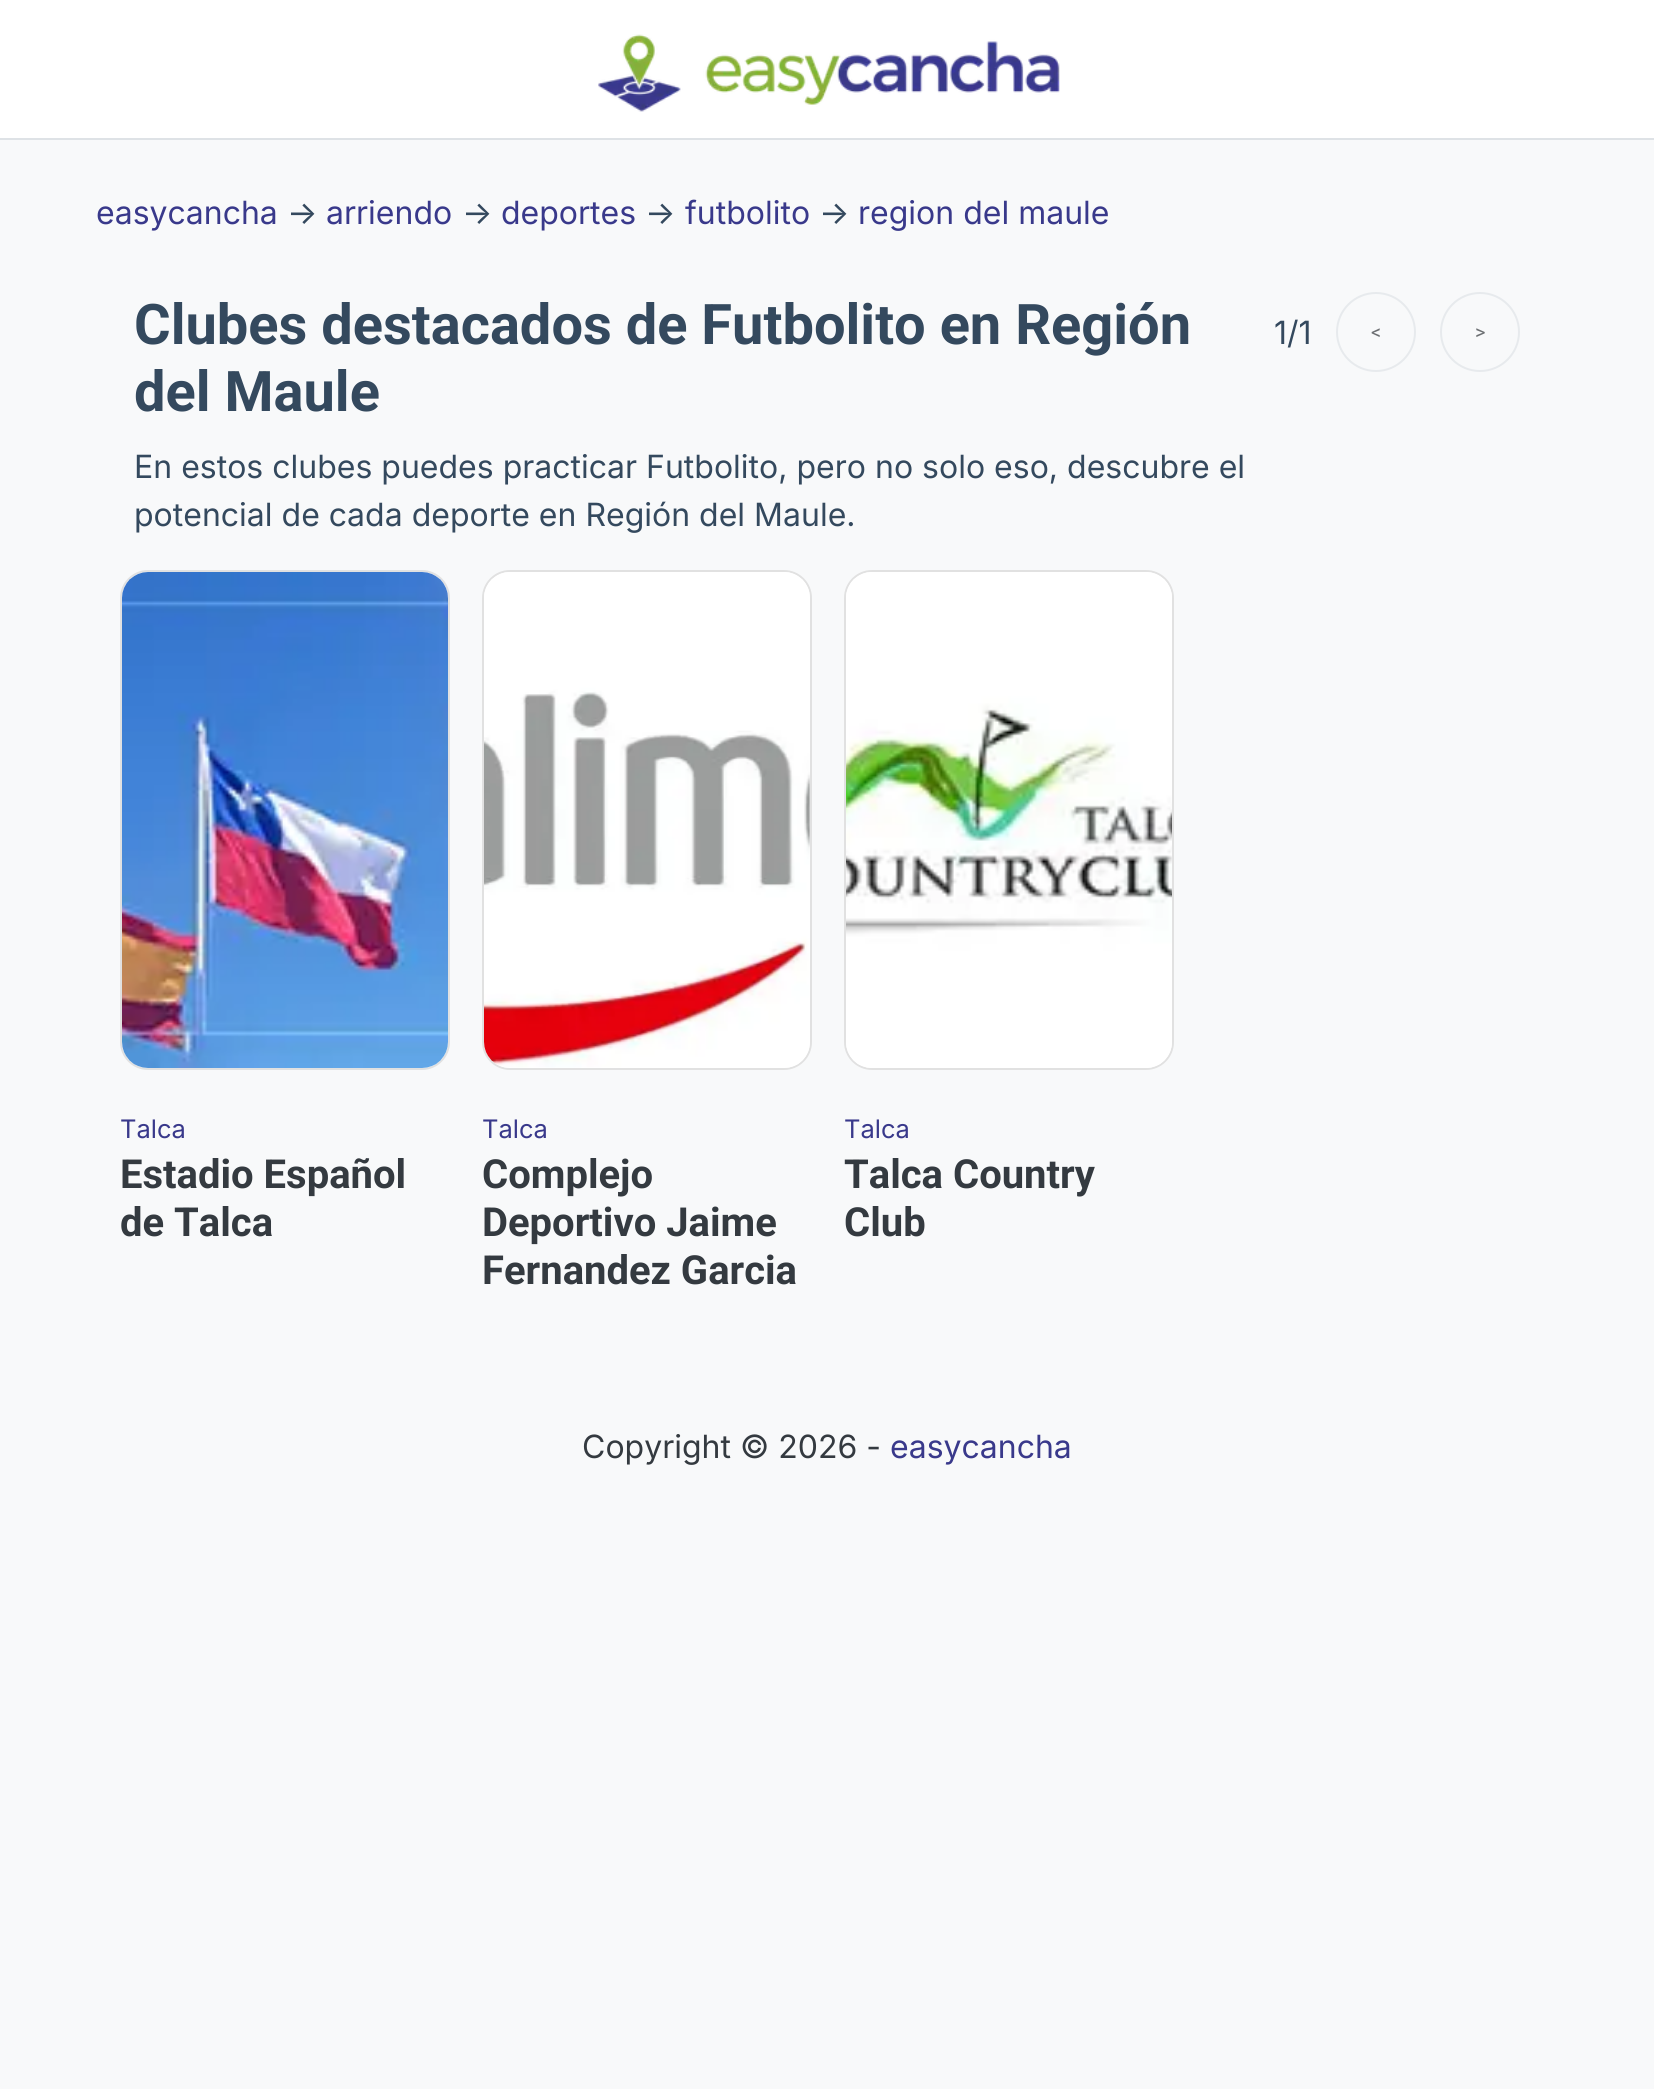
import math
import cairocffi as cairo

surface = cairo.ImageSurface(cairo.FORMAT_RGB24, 1654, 2089)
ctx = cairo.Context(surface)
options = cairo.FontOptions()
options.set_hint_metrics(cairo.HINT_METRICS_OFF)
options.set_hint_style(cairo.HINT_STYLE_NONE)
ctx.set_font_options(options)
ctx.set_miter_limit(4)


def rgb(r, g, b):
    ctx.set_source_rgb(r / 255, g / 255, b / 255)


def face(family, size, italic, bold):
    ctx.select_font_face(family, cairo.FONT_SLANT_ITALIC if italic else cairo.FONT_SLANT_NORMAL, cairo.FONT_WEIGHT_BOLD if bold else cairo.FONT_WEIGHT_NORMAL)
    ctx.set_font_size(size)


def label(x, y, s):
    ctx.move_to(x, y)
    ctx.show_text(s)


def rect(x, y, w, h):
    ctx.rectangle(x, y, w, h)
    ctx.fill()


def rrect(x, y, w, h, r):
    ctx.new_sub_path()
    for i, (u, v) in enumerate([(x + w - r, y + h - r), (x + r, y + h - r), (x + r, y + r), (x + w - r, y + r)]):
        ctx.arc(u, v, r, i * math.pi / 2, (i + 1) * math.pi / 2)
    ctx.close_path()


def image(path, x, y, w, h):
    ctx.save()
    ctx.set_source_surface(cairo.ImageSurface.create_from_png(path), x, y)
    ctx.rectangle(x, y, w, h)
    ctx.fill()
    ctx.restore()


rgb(248, 249, 250)
ctx.paint()
rgb(255, 255, 255)
rect(0, 0, 1654, 138)
rgb(222, 226, 230)
rect(0, 138, 1654, 2)
image('image0.png', 598, 34, 462, 78)
face('Inter', 32, 0, 0)
rgb(57, 57, 139)
label(96, 224, 'easycancha')
rgb(52, 73, 94)
label(287, 224, '→')
rgb(57, 57, 139)
label(326, 224, 'arriendo')
rgb(52, 73, 94)
label(462, 224, '→')
rgb(57, 57, 139)
label(501, 224, 'deportes')
rgb(52, 73, 94)
label(645, 224, '→')
rgb(57, 57, 139)
label(685, 224, 'futbolito')
rgb(52, 73, 94)
label(819, 224, '→')
rgb(57, 57, 139)
label(858, 224, 'region del maule')
face('Roboto', 56, 0, 1)
rgb(52, 73, 94)
label(134, 344, 'Clubes destacados de Futbolito en Región')
label(134, 411, 'del Maule')
face('Inter', 32, 0, 0)
label(134, 478, 'En estos clubes puedes practicar Futbolito, pero no solo eso, descubre el')
label(134, 526, 'potencial de cada deporte en Región del Maule.')
label(1274, 344, '1/1')
ctx.new_path()
ctx.arc(1376, 332, 39, 0, 2 * math.pi)
rgb(231, 234, 237)
ctx.stroke()
face('Roboto', 20, 0, 0)
rgb(108, 111, 114)
label(1371, 339, '<')
ctx.new_path()
ctx.arc(1480, 332, 39, 0, 2 * math.pi)
rgb(231, 234, 237)
ctx.stroke()
rgb(108, 111, 114)
label(1475, 339, '>')
rgb(255, 255, 255)
rrect(120, 570, 330, 500, 28)
ctx.fill()
rrect(121, 571, 328, 498, 27)
ctx.set_source_rgba(0, 0, 0, 0.12)
ctx.stroke()
image('image1.png', 122, 572, 326, 496)
face('Inter', 25.5, 0, 0)
rgb(57, 57, 139)
label(120, 1138, 'Talca')
face('Roboto', 40, 0, 1)
rgb(52, 58, 64)
label(120, 1188, 'Estadio Español')
label(120, 1236, 'de Talca')
rgb(255, 255, 255)
rrect(482, 570, 330, 500, 28)
ctx.fill()
rrect(483, 571, 328, 498, 27)
ctx.set_source_rgba(0, 0, 0, 0.12)
ctx.stroke()
image('image2.png', 484, 572, 326, 496)
face('Inter', 25.5, 0, 0)
rgb(57, 57, 139)
label(482, 1138, 'Talca')
face('Roboto', 40, 0, 1)
rgb(52, 58, 64)
label(482, 1188, 'Complejo')
label(482, 1236, 'Deportivo Jaime')
label(482, 1284, 'Fernandez Garcia')
rgb(255, 255, 255)
rrect(844, 570, 330, 500, 28)
ctx.fill()
rrect(845, 571, 328, 498, 27)
ctx.set_source_rgba(0, 0, 0, 0.12)
ctx.stroke()
image('image3.png', 846, 572, 326, 496)
face('Inter', 25.5, 0, 0)
rgb(57, 57, 139)
label(844, 1138, 'Talca')
face('Roboto', 40, 0, 1)
rgb(52, 58, 64)
label(844, 1188, 'Talca Country')
label(844, 1236, 'Club')
face('Inter', 32, 0, 0)
label(582, 1458, 'Copyright © 2026 -')
rgb(57, 57, 139)
label(890, 1458, 'easycancha')
surface.write_to_png('render.png')
